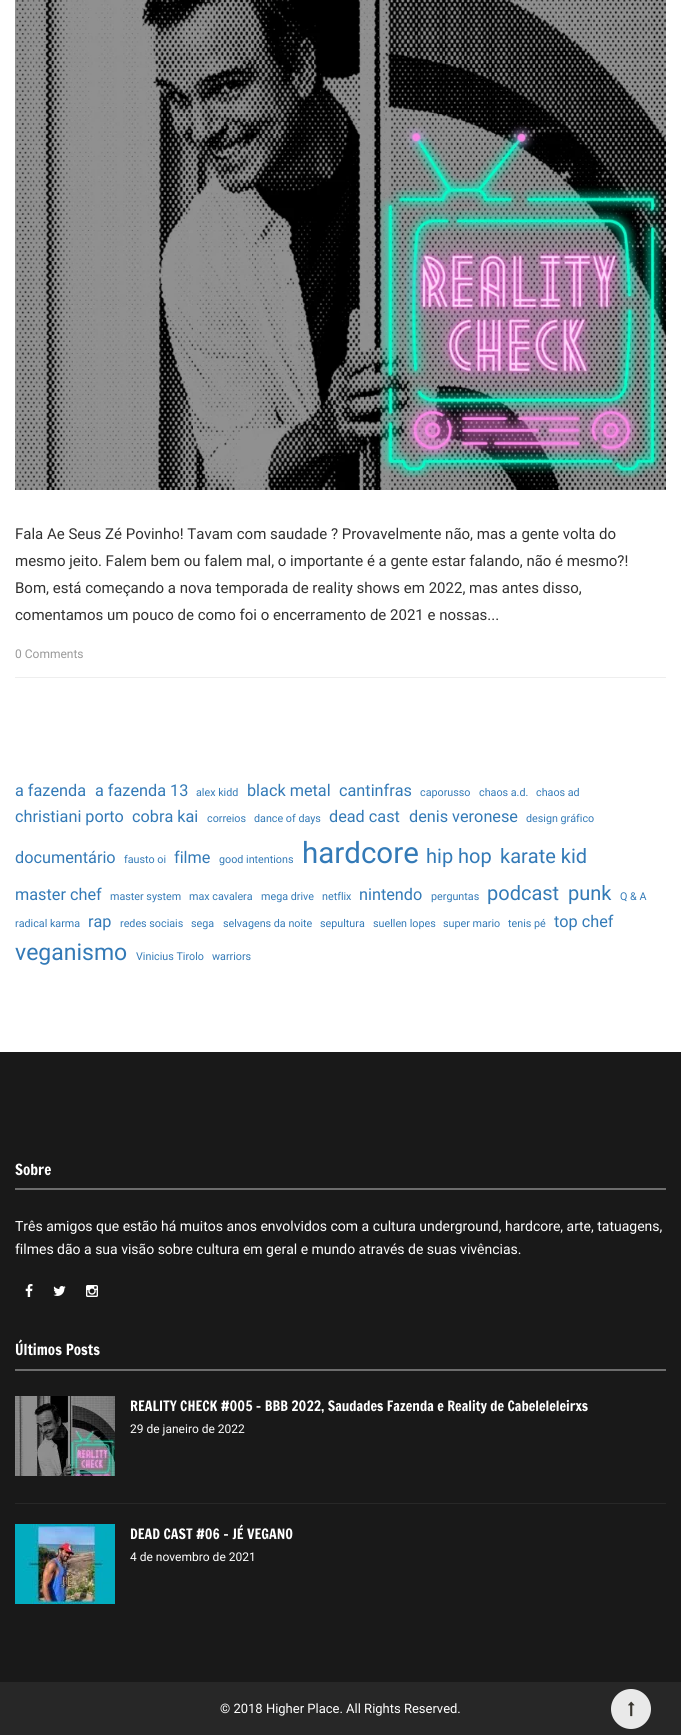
import math
import cairocffi as cairo

surface = cairo.ImageSurface(cairo.FORMAT_RGB24, 681, 1735)
ctx = cairo.Context(surface)
options = cairo.FontOptions()
options.set_hint_metrics(cairo.HINT_METRICS_OFF)
options.set_hint_style(cairo.HINT_STYLE_NONE)
ctx.set_font_options(options)
ctx.set_miter_limit(4)


def rgb(r, g, b):
    ctx.set_source_rgb(r / 255, g / 255, b / 255)


def face(family, size, italic, bold):
    ctx.select_font_face(family, cairo.FONT_SLANT_ITALIC if italic else cairo.FONT_SLANT_NORMAL, cairo.FONT_WEIGHT_BOLD if bold else cairo.FONT_WEIGHT_NORMAL)
    ctx.set_font_size(size)


def label(x, y, s):
    ctx.move_to(x, y)
    ctx.show_text(s)


def rect(x, y, w, h):
    ctx.rectangle(x, y, w, h)
    ctx.fill()


def image(path, x, y, w, h):
    ctx.save()
    ctx.set_source_surface(cairo.ImageSurface.create_from_png(path), x, y)
    ctx.rectangle(x, y, w, h)
    ctx.fill()
    ctx.restore()


rgb(255, 255, 255)
ctx.paint()
image('image0.png', 15, 0, 651, 490)
face('Roboto', 15, 0, 0)
rgb(49, 49, 49)
label(15, 539, 'Fala Ae Seus Zé Povinho! Tavam com saudade ? Provavelmente não, mas a gente volta do')
label(15, 566, 'mesmo jeito. Falem bem ou falem mal, o importante é a gente estar falando, não é mesmo?!')
label(15, 593, 'Bom, está começando a nova temporada de reality shows em 2022, mas antes disso,')
label(15, 620, 'comentamos um pouco de como foi o encerramento de 2021 e nossas...')
rgb(238, 238, 238)
rect(15, 677, 651, 1)
face('Roboto', 12, 0, 0)
rgb(153, 153, 153)
label(15, 658, '0 Comments')
face('Roboto', 16.25, 0, 0)
rgb(51, 122, 183)
label(15, 796, 'a fazenda')
label(95, 796, 'a fazenda 13')
face('Roboto', 10.75, 0, 0)
label(196, 796, 'alex kidd')
face('Roboto', 16.25, 0, 0)
label(247, 796, 'black metal')
label(339, 796, 'cantinfras')
face('Roboto', 10.75, 0, 0)
label(420, 796, 'caporusso')
label(479, 796, 'chaos a.d.')
label(536, 796, 'chaos ad')
face('Roboto', 16.25, 0, 0)
label(15, 822, 'christiani porto')
label(132, 822, 'cobra kai')
face('Roboto', 10.75, 0, 0)
label(207, 822, 'correios')
label(254, 822, 'dance of days')
face('Roboto', 16.25, 0, 0)
label(329, 822, 'dead cast')
label(409, 822, 'denis veronese')
face('Roboto', 10.75, 0, 0)
label(526, 822, 'design gráfico')
face('Roboto', 16.25, 0, 0)
label(15, 863, 'documentário')
face('Roboto', 10.75, 0, 0)
label(124, 863, 'fausto oi')
face('Roboto', 16.25, 0, 0)
label(174, 863, 'filme')
face('Roboto', 10.75, 0, 0)
label(219, 863, 'good intentions')
face('Roboto', 29.5, 0, 0)
label(302, 863, 'hardcore')
face('Roboto', 20, 0, 0)
label(426, 863, 'hip hop')
label(500, 863, 'karate kid')
face('Roboto', 16.25, 0, 0)
label(15, 900, 'master chef')
face('Roboto', 10.75, 0, 0)
label(110, 900, 'master system')
label(189, 900, 'max cavalera')
label(261, 900, 'mega drive')
label(322, 900, 'netflix')
face('Roboto', 16.25, 0, 0)
label(359, 900, 'nintendo')
face('Roboto', 10.75, 0, 0)
label(431, 900, 'perguntas')
face('Roboto', 20, 0, 0)
label(487, 900, 'podcast')
label(568, 900, 'punk')
face('Roboto', 10.75, 0, 0)
label(620, 900, 'Q & A')
label(15, 927, 'radical karma')
face('Roboto', 16.25, 0, 0)
label(88, 927, 'rap')
face('Roboto', 10.75, 0, 0)
label(120, 927, 'redes sociais')
label(191, 927, 'sega')
label(223, 927, 'selvagens da noite')
label(320, 927, 'sepultura')
label(373, 927, 'suellen lopes')
label(443, 927, 'super mario')
label(508, 927, 'tenis pé')
face('Roboto', 16.25, 0, 0)
label(554, 927, 'top chef')
face('Roboto', 23, 0, 0)
label(15, 960, 'veganismo')
face('Roboto', 10.75, 0, 0)
label(136, 960, 'Vinicius Tirolo')
label(212, 960, 'warriors')
rgb(25, 25, 25)
rect(0, 1052, 681, 630)
rgb(109, 109, 109)
rect(15, 1188, 651, 2)
face('Francois One', 15, 0, 0)
rgb(255, 255, 255)
label(15, 1175, 'Sobre')
face('Roboto', 14, 0, 0)
label(15, 1231, 'Três amigos que estão há muitos anos envolvidos com a cultura underground, hardcore, arte, tatuagens,')
label(15, 1254, 'filmes dão a sua visão sobre cultura em geral e mundo através de suas vivências.')
image('image1.png', 25, 1284, 8, 13)
image('image2.png', 53, 1286, 13, 10)
image('image3.png', 86, 1285, 12, 12)
rgb(109, 109, 109)
rect(15, 1369, 651, 2)
face('Francois One', 15, 0, 0)
rgb(255, 255, 255)
label(15, 1355, 'Últimos Posts')
image('image4.png', 15, 1396, 100, 80)
face('Francois One', 14, 0, 0)
label(130, 1411, 'REALITY CHECK #005 – BBB 2022, Saudades Fazenda e Reality de Cabeleleleirxs')
face('Roboto', 12, 0, 0)
label(130, 1433, '29 de janeiro de 2022')
rgb(40, 40, 40)
rect(15, 1503, 651, 1)
image('image5.png', 15, 1524, 100, 80)
face('Francois One', 14, 0, 0)
rgb(255, 255, 255)
label(130, 1539, 'DEAD CAST #06 – JÉ VEGANO')
face('Roboto', 12, 0, 0)
label(130, 1561, '4 de novembro de 2021')
rgb(39, 39, 39)
rect(0, 1682, 681, 53)
face('Roboto', 13, 0, 0)
rgb(255, 255, 255)
label(220, 1713, '© 2018 Higher Place. All Rights Reserved.')
rgb(233, 233, 233)
ctx.new_path()
ctx.arc(631, 1709, 20, 0, 2 * math.pi)
ctx.fill()
image('image6.png', 628, 1701, 7, 16)
surface.write_to_png('render.png')
